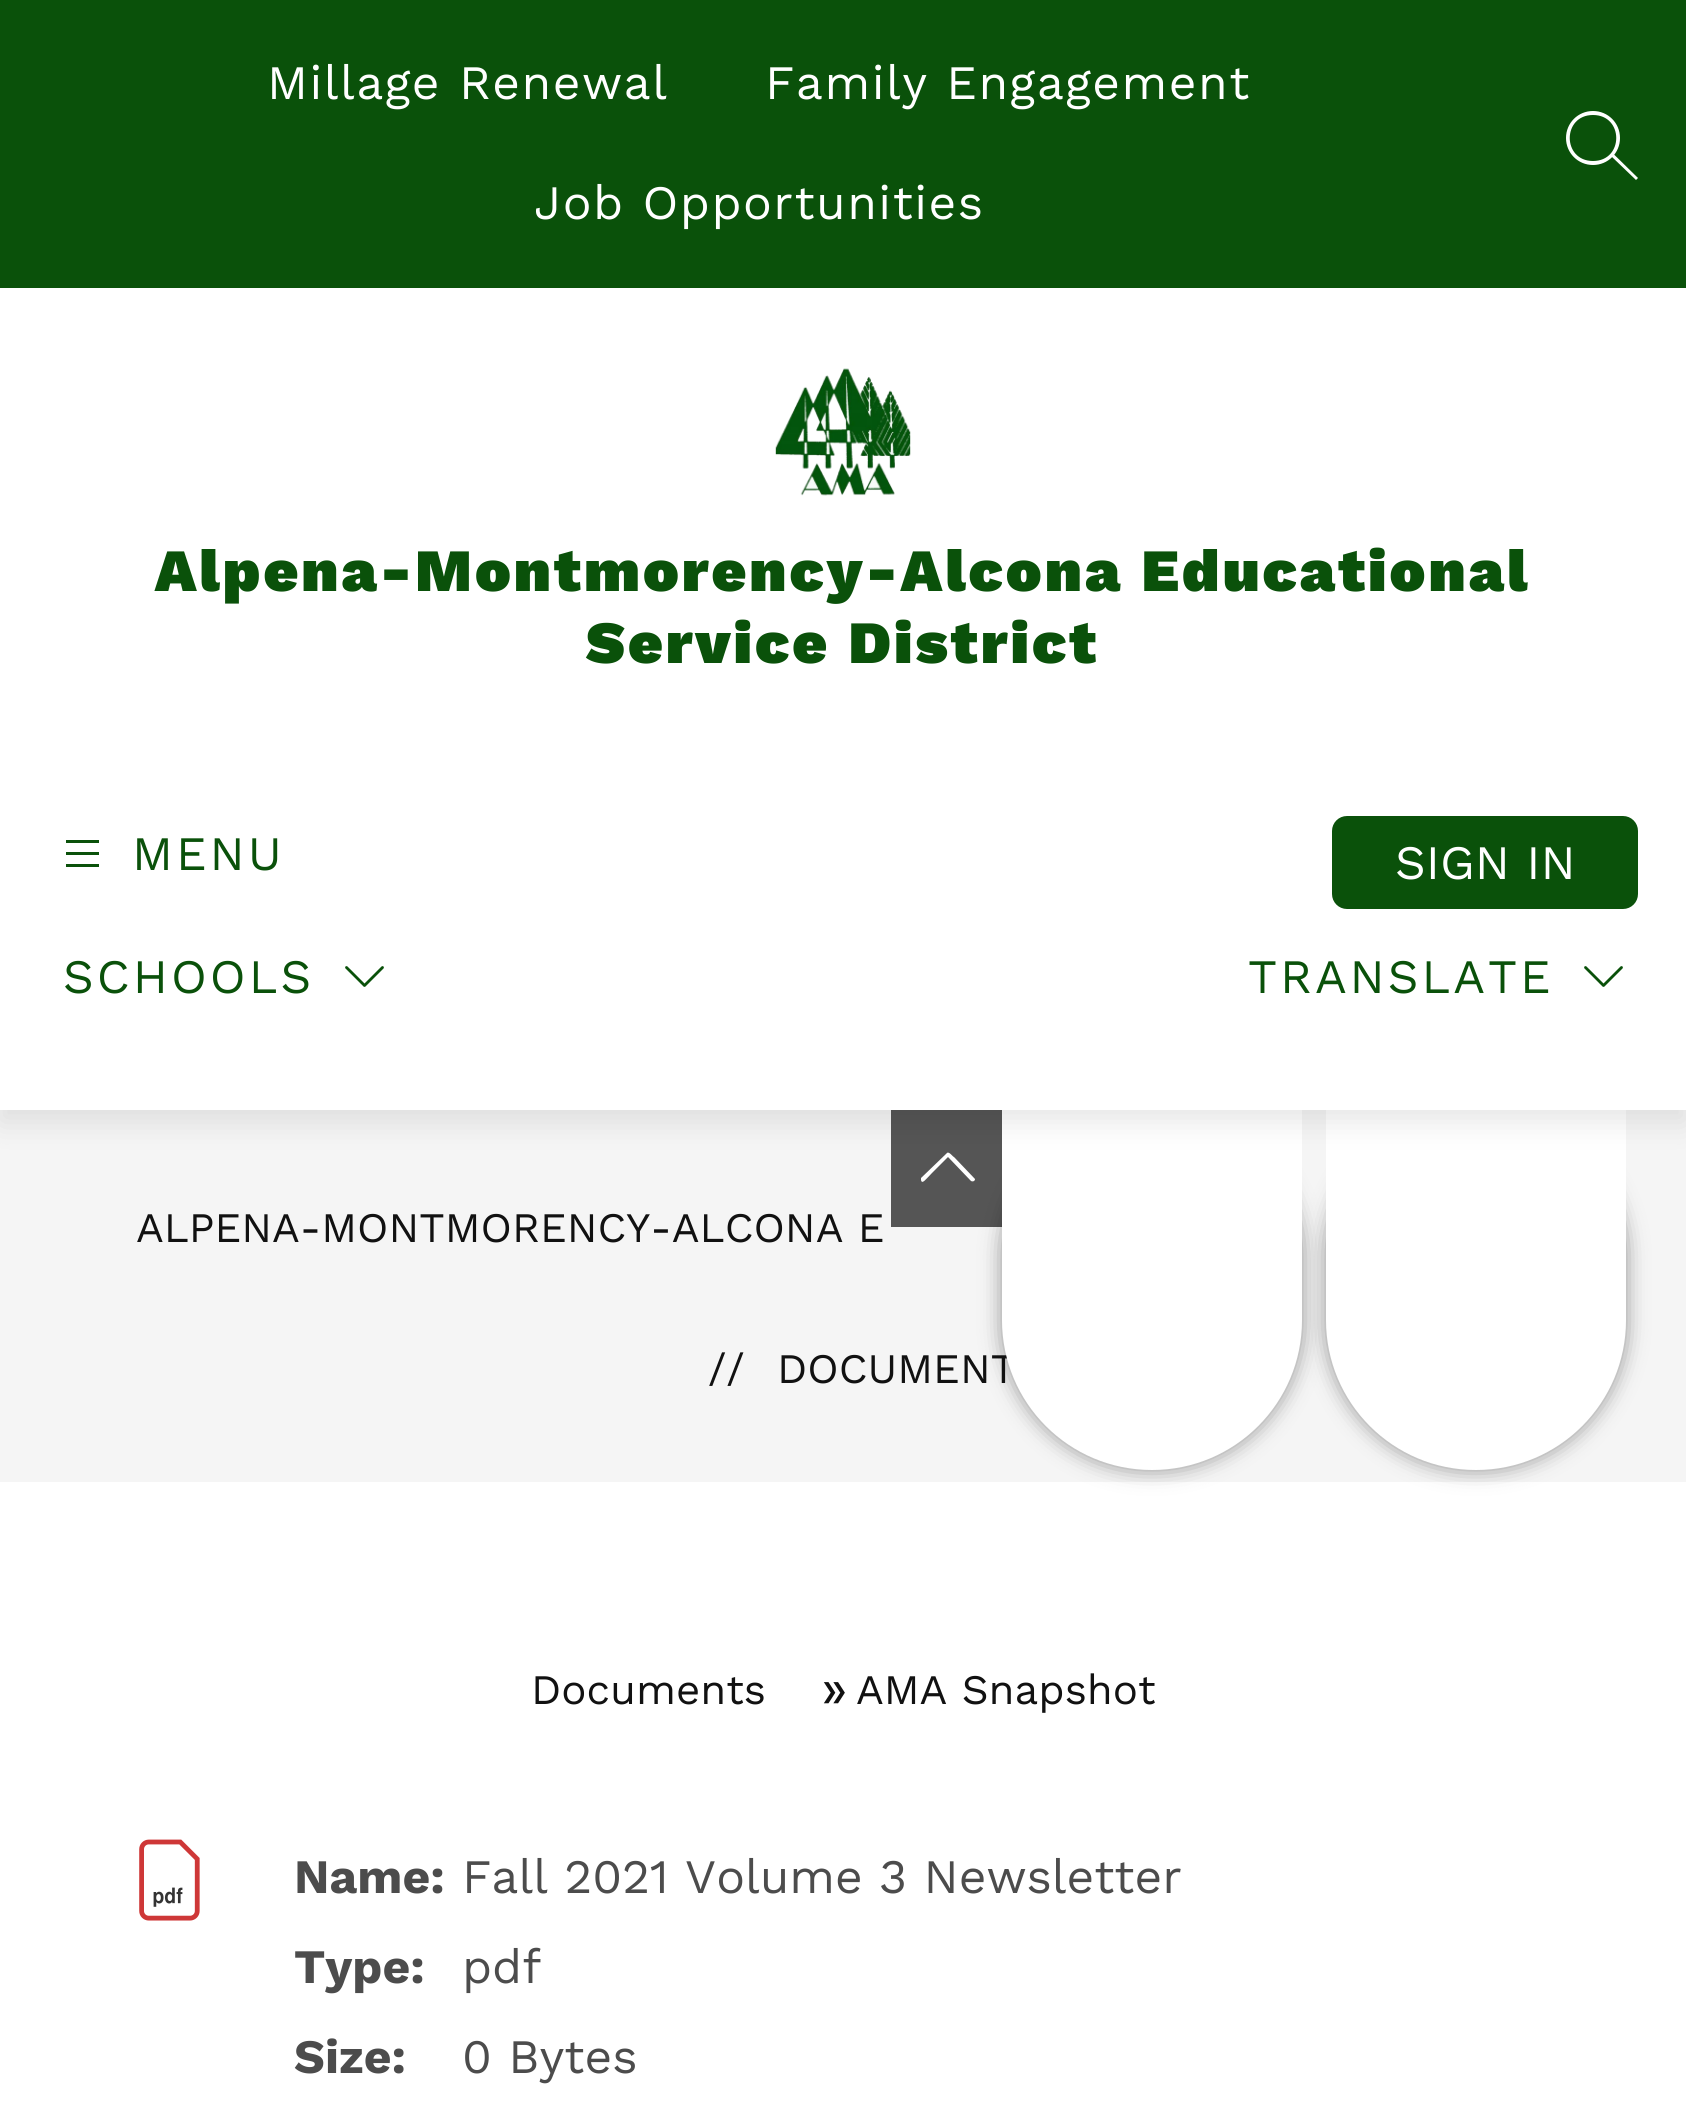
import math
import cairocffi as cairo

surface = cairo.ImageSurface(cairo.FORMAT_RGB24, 1686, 2119)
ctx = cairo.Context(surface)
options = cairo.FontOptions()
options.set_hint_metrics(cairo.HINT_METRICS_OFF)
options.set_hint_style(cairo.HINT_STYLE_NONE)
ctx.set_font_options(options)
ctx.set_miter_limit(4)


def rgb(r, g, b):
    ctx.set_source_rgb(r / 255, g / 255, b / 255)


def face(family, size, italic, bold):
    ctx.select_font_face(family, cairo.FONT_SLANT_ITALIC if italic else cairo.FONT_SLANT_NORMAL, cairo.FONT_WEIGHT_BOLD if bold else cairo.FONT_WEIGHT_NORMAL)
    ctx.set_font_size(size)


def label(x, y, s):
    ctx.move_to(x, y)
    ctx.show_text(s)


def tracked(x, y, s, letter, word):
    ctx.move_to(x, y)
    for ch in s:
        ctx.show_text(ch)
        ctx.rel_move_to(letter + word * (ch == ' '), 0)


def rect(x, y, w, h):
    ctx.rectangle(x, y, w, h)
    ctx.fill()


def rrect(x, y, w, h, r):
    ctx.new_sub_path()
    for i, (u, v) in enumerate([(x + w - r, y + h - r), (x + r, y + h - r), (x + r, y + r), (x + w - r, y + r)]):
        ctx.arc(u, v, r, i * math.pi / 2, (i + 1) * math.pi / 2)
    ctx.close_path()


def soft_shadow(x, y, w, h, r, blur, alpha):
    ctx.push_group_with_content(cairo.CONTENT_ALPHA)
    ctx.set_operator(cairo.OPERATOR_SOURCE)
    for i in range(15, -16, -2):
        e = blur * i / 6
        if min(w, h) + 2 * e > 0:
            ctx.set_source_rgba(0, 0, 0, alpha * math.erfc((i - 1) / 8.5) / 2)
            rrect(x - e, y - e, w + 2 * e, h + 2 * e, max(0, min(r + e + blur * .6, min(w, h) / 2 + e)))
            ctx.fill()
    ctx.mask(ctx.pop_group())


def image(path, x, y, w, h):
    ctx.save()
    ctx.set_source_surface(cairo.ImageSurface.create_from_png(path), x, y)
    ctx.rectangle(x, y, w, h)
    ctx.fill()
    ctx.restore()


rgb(255, 255, 255)
ctx.paint()
rgb(245, 245, 245)
rect(0, 1110, 1686, 372)
rgb(85, 85, 85)
rect(891, 1110, 111, 117)
rgb(0, 0, 0)
soft_shadow(1002, 1110, 300, 360, 150, 10.5, 0.4)
rgb(255, 255, 255)
ctx.new_path()
ctx.move_to(947, 1153)
ctx.line_to(921, 1178)
ctx.line_to(921, 1180)
ctx.curve_to(922, 1185, 926, 1179, 932, 1173)
ctx.line_to(948, 1157)
ctx.line_to(971, 1181)
ctx.curve_to(973, 1182, 975, 1181, 975, 1179)
ctx.line_to(954, 1157)
ctx.curve_to(953, 1157, 949, 1151, 947, 1153)
ctx.close_path()
ctx.fill()
face('Work Sans', 42, 0, 0)
rgb(17, 17, 17)
label(777, 1383, 'DOCUMENT')
rgb(255, 255, 255)
ctx.new_path()
ctx.move_to(1002, 1110)
ctx.line_to(1302, 1110)
ctx.line_to(1302, 1320)
ctx.curve_to(1302, 1403, 1235, 1470, 1152, 1470)
ctx.curve_to(1069, 1470, 1002, 1403, 1002, 1320)
ctx.close_path()
ctx.fill()
rgb(0, 0, 0)
soft_shadow(1326, 1110, 300, 360, 150, 10.5, 0.4)
rgb(255, 255, 255)
ctx.new_path()
ctx.move_to(1326, 1110)
ctx.line_to(1626, 1110)
ctx.line_to(1626, 1320)
ctx.curve_to(1626, 1403, 1559, 1470, 1476, 1470)
ctx.curve_to(1393, 1470, 1326, 1403, 1326, 1320)
ctx.close_path()
ctx.fill()
rgb(0, 0, 0)
soft_shadow(0, 12, 1686, 1110, 0, 15, 0.1)
rgb(255, 255, 255)
rect(0, 288, 1686, 822)
rgb(10, 81, 10)
rect(0, 0, 1686, 288)
face('Work Sans', 48, 0, 0)
rgb(255, 255, 255)
tracked(267, 99, 'Millage Renewal', 1.5, 0)
tracked(765, 99, 'Family Engagement', 1.5, 0)
tracked(534, 219, 'Job Opportunities', 1.5, 0)
ctx.set_fill_rule(cairo.FILL_RULE_EVEN_ODD)
ctx.new_path()
ctx.move_to(1593, 161)
ctx.curve_to(1624, 161, 1624, 115, 1593, 115)
ctx.curve_to(1562, 115, 1562, 161, 1593, 161)
ctx.close_path()
ctx.move_to(1593, 165)
ctx.curve_to(1608, 165, 1620, 153, 1620, 138)
ctx.curve_to(1620, 123, 1608, 111, 1593, 111)
ctx.curve_to(1578, 111, 1566, 123, 1566, 138)
ctx.curve_to(1566, 153, 1578, 165, 1593, 165)
ctx.close_path()
ctx.fill()
ctx.new_path()
ctx.move_to(1636, 180)
ctx.line_to(1611.5, 156.5)
ctx.line_to(1613.5, 154)
ctx.line_to(1638, 178)
ctx.close_path()
ctx.fill()
image('image0.png', 775, 368, 136, 128)
face('Work Sans Black', 60, 0, 0)
rgb(10, 81, 10)
tracked(155, 591, 'Alpena-Montmorency-Alcona Educational', 3, 0)
tracked(586, 663, 'Service District', 3, 0)
ctx.new_path()
ctx.move_to(66, 840)
ctx.line_to(99, 840)
ctx.line_to(99, 843)
ctx.line_to(66, 843)
ctx.close_path()
ctx.move_to(66, 852)
ctx.line_to(99, 852)
ctx.line_to(99, 855)
ctx.line_to(66, 855)
ctx.close_path()
ctx.move_to(99, 864)
ctx.line_to(66, 864)
ctx.line_to(66, 867)
ctx.line_to(99, 867)
ctx.close_path()
ctx.fill()
face('Work Sans', 48, 0, 0)
tracked(132, 870, 'MENU', 3, 0)
tracked(63, 993, 'SCHOOLS', 3, 0)
ctx.new_path()
ctx.move_to(345.5, 966.5)
ctx.curve_to(346, 966, 347, 966, 347.5, 966.5)
ctx.line_to(364.5, 983.5)
ctx.line_to(381.5, 966.5)
ctx.curve_to(382, 966, 383, 966, 383.5, 966.5)
ctx.curve_to(384, 967, 384, 968, 383.5, 968.5)
ctx.line_to(365.5, 986.5)
ctx.curve_to(365, 987, 364, 987, 363.5, 986.5)
ctx.line_to(345.5, 968.5)
ctx.curve_to(345, 968, 345, 967, 345.5, 966.5)
ctx.close_path()
ctx.fill()
rrect(1333.5, 817.5, 303, 90, 13.5)
ctx.fill_preserve()
ctx.set_line_width(3)
ctx.stroke()
rgb(255, 255, 255)
label(1395, 879, 'SIGN IN')
rgb(10, 81, 10)
tracked(1248, 993, 'TRANSLATE', 3, 0)
ctx.new_path()
ctx.move_to(1584.5, 966.5)
ctx.curve_to(1585, 966, 1586, 966, 1586.5, 966.5)
ctx.line_to(1603.5, 983.5)
ctx.line_to(1620.5, 966.5)
ctx.curve_to(1621, 966, 1622, 966, 1622.5, 966.5)
ctx.curve_to(1623, 967, 1623, 968, 1622.5, 968.5)
ctx.line_to(1604.5, 986.5)
ctx.curve_to(1604, 987, 1603, 987, 1602.5, 986.5)
ctx.line_to(1584.5, 968.5)
ctx.curve_to(1584, 968, 1584, 967, 1584.5, 966.5)
ctx.close_path()
ctx.fill()
face('Work Sans', 42, 0, 0)
rgb(17, 17, 17)
label(136, 1242, 'ALPENA-MONTMORENCY-ALCONA E')
label(708, 1383, '//')
label(531, 1704, 'Documents')
face('Work Sans', 54, 0, 0)
label(821, 1707, '»')
face('Work Sans', 42, 0, 0)
label(856, 1704, 'AMA Snapshot')
image('image1.png', 139, 1839, 61, 82)
face('Work Sans', 48, 0, 1)
rgb(76, 76, 76)
label(294, 1893, 'Name:')
face('Work Sans', 48, 0, 0)
label(462, 1893, 'Fall 2021 Volume 3 Newsletter')
face('Work Sans', 48, 0, 1)
label(294, 1983, 'Type:')
face('Work Sans', 48, 0, 0)
label(462, 1983, 'pdf')
face('Work Sans', 48, 0, 1)
label(294, 2073, 'Size:')
face('Work Sans', 48, 0, 0)
label(462, 2073, '0 Bytes')
surface.write_to_png('render.png')
